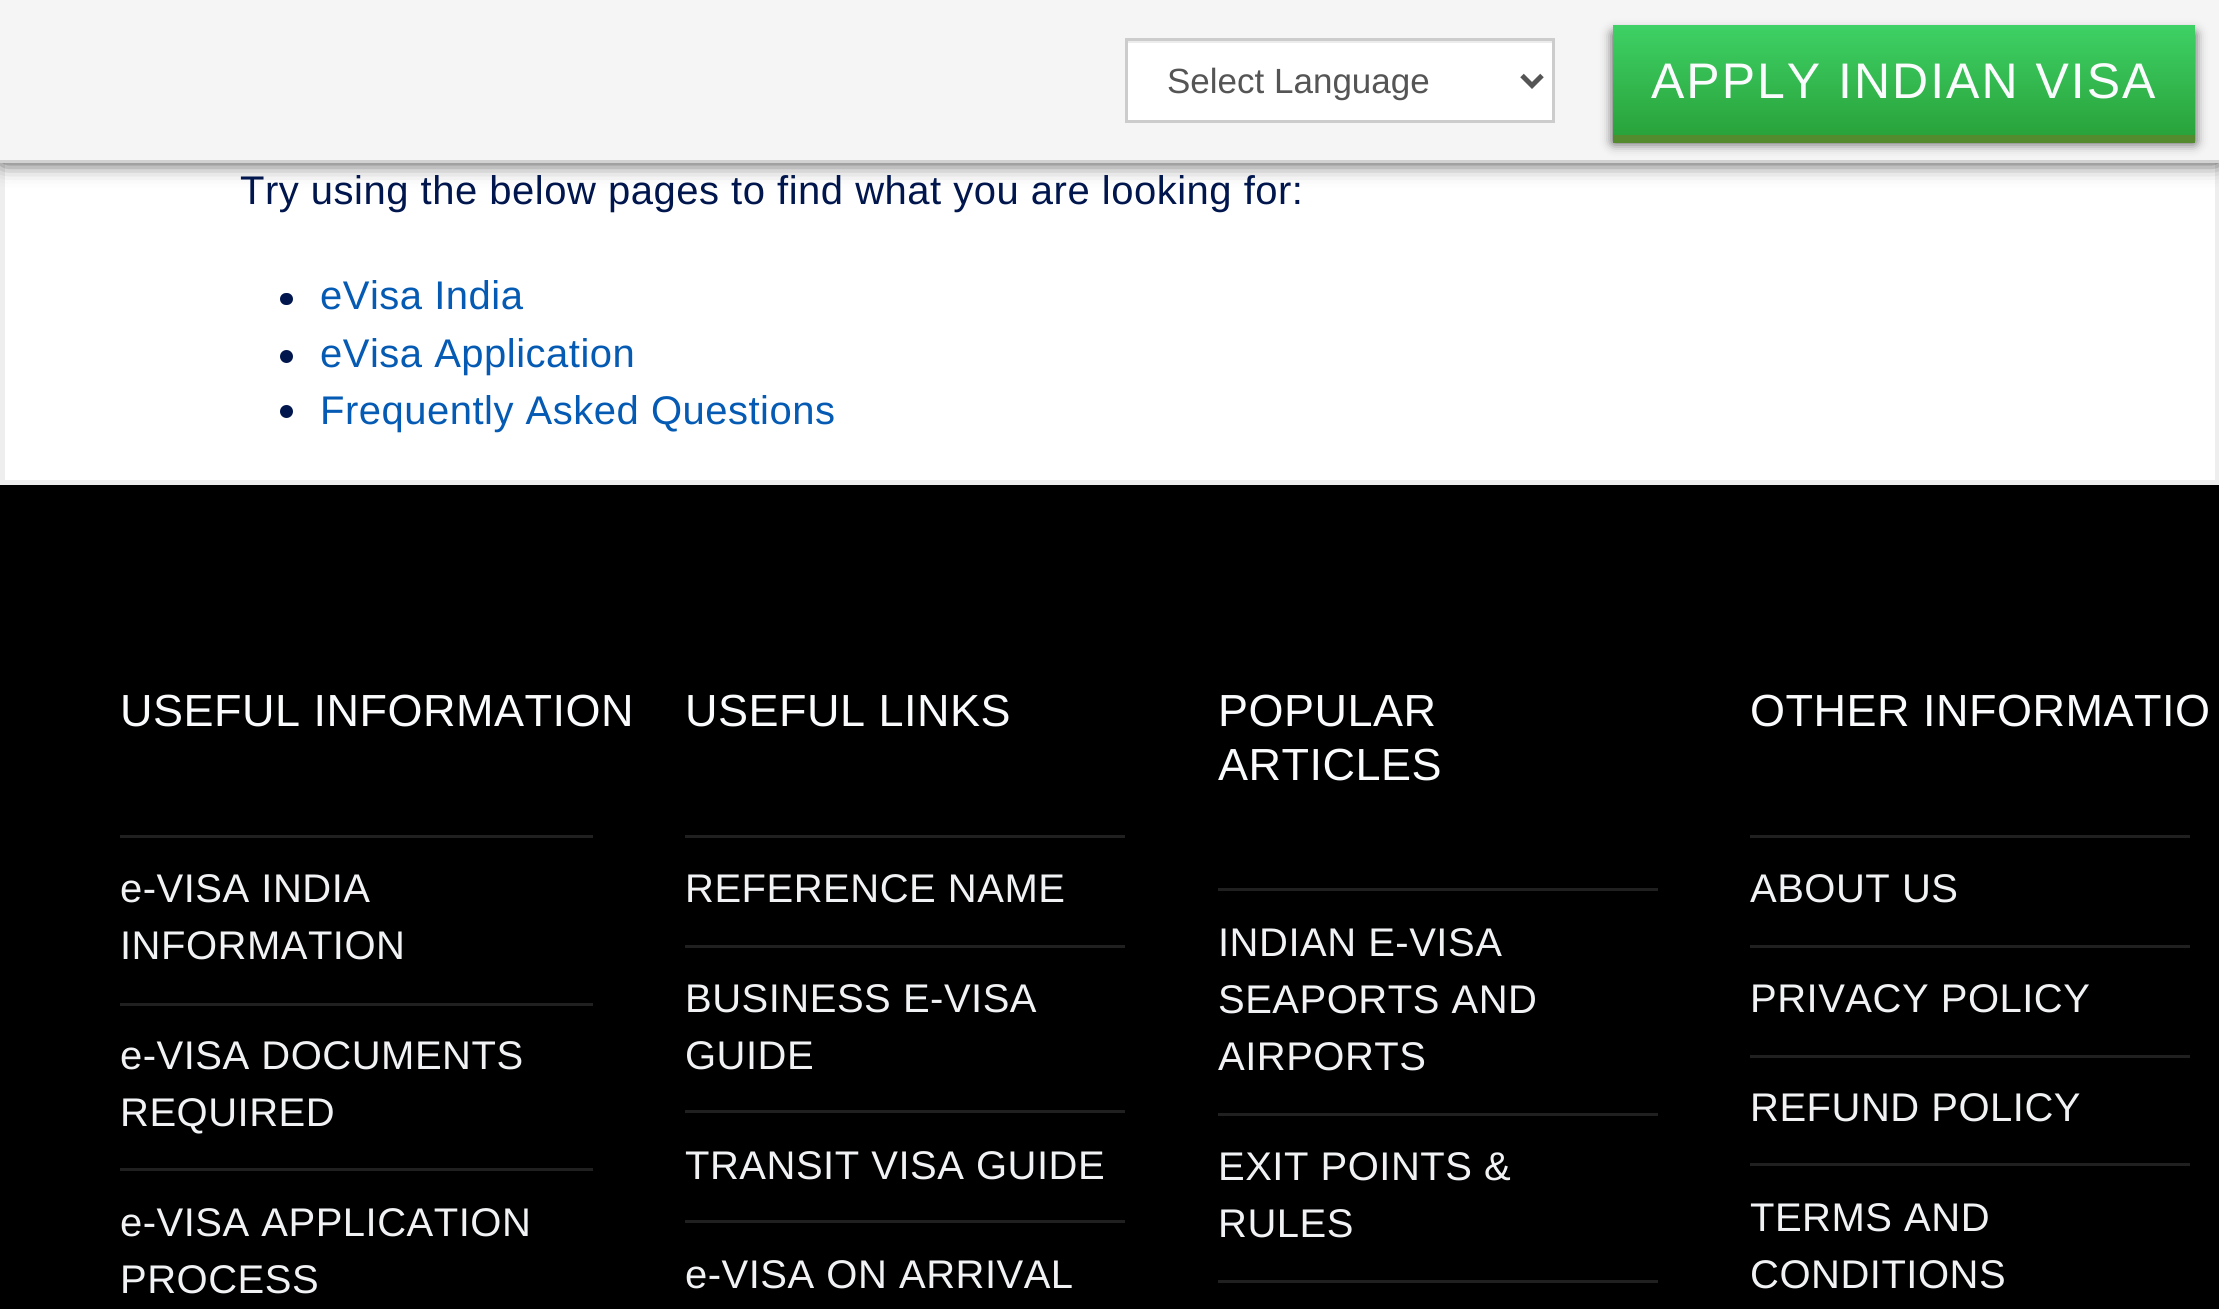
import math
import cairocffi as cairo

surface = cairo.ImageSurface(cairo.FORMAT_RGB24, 2219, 1309)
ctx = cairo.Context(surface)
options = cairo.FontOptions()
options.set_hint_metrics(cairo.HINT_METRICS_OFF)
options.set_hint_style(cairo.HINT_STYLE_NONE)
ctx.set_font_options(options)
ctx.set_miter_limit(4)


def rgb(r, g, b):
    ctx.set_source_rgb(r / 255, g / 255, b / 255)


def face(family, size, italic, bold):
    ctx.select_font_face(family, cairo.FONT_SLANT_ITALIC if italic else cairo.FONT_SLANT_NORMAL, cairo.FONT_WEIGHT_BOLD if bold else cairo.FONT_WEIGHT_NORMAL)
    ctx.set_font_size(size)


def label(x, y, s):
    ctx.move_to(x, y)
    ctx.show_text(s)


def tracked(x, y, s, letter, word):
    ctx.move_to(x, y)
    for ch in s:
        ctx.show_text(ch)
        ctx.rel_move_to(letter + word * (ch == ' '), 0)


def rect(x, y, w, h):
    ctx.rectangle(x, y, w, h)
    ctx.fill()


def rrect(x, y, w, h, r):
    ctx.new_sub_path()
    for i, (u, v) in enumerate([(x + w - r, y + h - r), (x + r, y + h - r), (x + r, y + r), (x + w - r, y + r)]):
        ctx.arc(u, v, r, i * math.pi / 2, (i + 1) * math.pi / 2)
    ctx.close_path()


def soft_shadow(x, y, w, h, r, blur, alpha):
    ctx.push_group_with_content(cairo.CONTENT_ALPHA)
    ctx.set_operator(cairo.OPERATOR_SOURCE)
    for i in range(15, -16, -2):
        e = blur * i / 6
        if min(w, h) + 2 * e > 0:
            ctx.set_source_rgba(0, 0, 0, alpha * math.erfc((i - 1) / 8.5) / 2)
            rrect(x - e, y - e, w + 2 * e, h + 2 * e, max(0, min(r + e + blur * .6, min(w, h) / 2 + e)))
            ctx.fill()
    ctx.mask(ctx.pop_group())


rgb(255, 255, 255)
ctx.paint()
ctx.rectangle(2.5, -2.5, 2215, 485)
rgb(238, 238, 238)
ctx.set_line_width(5)
ctx.stroke()
rgb(0, 0, 0)
soft_shadow(3, 3, 2215, 157, 0, 11, 1)
rgb(246, 245, 245)
rect(0, 0, 2219, 160)
rgb(210, 210, 210)
rect(0, 160, 2219, 3)
rgb(255, 255, 255)
rect(1128, 43, 424, 77)
rgb(236, 236, 236)
rect(1128, 41, 425, 2)
ctx.rectangle(1126.5, 39.5, 427, 82)
rgb(204, 204, 204)
ctx.set_line_width(3)
ctx.stroke()
ctx.new_path()
ctx.move_to(1522, 75.5)
ctx.line_to(1532, 85.5)
ctx.line_to(1542, 75.5)
rgb(85, 85, 85)
ctx.set_line_width(5)
ctx.stroke()
face('Liberation Sans', 35, 0, 0)
label(1167, 93, 'Select Language')
rgb(0, 0, 0)
soft_shadow(1613, 33, 582, 110, 0, 6, 0.7)
rgb(85, 139, 47)
rect(1613, 135, 582, 8)
gradient = cairo.LinearGradient(1904, 25, 1904, 135)
gradient.add_color_stop_rgba(0, 0.243, 0.82, 0.396, 1)
gradient.add_color_stop_rgba(1, 0.161, 0.639, 0.231, 1)
ctx.set_source(gradient)
rect(1613, 25, 582, 110)
face('Liberation Sans', 50, 0, 0)
rgb(250, 251, 252)
tracked(1651, 98, 'APPLY INDIAN VISA', 2, 0)
face('Liberation Sans', 40, 0, 0)
rgb(0, 22, 77)
tracked(240, 204, 'Try using the below pages to find what you are looking for:', 0.5, 0)
rrect(280, 293, 13, 12, 6)
ctx.fill()
rgb(5, 90, 179)
tracked(320, 309, 'eVisa India', 0.5, 0)
rgb(0, 22, 77)
ctx.new_path()
ctx.arc(286.5, 356.5, 6.5, 0, 2 * math.pi)
ctx.fill()
rgb(5, 90, 179)
tracked(320, 367, 'eVisa Application', 0.5, 0)
rgb(0, 22, 77)
ctx.new_path()
ctx.arc(286.5, 411.5, 6.5, 0, 2 * math.pi)
ctx.fill()
rgb(5, 90, 179)
tracked(320, 424, 'Frequently Asked Questions', 0.5, 0)
rgb(0, 0, 0)
rect(0, 485, 2219, 824)
face('Liberation Sans', 45, 0, 0)
rgb(250, 251, 252)
tracked(120, 726, 'USEFUL INFORMATION', 0.5, 0)
rgb(32, 32, 32)
rect(120, 835, 473, 3)
rect(120, 1003, 473, 3)
face('Liberation Sans', 40, 0, 0)
rgb(240, 242, 244)
tracked(120, 902, 'e-VISA INDIA', 0.5, 0)
tracked(120, 959, 'INFORMATION', 0.5, 0)
rgb(32, 32, 32)
rect(120, 1168, 473, 3)
rgb(240, 242, 244)
tracked(120, 1069, 'e-VISA DOCUMENTS', 0.5, 0)
tracked(120, 1126, 'REQUIRED', 0.5, 0)
tracked(120, 1236, 'e-VISA APPLICATION', 0.5, 0)
tracked(120, 1293, 'PROCESS', 0.5, 0)
face('Liberation Sans', 45, 0, 0)
rgb(250, 251, 252)
tracked(685, 726, 'USEFUL LINKS', 0.5, 0)
rgb(32, 32, 32)
rect(685, 835, 440, 3)
rect(685, 945, 440, 3)
face('Liberation Sans', 40, 0, 0)
rgb(240, 242, 244)
tracked(685, 902, 'REFERENCE NAME', 0.5, 0)
rgb(32, 32, 32)
rect(685, 1110, 440, 3)
rgb(240, 242, 244)
tracked(685, 1012, 'BUSINESS E-VISA', 0.5, 0)
tracked(685, 1069, 'GUIDE', 0.5, 0)
rgb(32, 32, 32)
rect(685, 1220, 440, 3)
rgb(240, 242, 244)
tracked(685, 1179, 'TRANSIT VISA GUIDE', 0.5, 0)
tracked(685, 1288, 'e-VISA ON ARRIVAL', 0.5, 0)
face('Liberation Sans', 45, 0, 0)
rgb(250, 251, 252)
tracked(1218, 726, 'POPULAR', 0.5, 0)
tracked(1218, 780, 'ARTICLES', 0.5, 0)
rgb(32, 32, 32)
rect(1218, 888, 440, 3)
rect(1218, 1113, 440, 3)
face('Liberation Sans', 40, 0, 0)
rgb(240, 242, 244)
tracked(1218, 956, 'INDIAN E-VISA', 0.5, 0)
tracked(1218, 1013, 'SEAPORTS AND', 0.5, 0)
tracked(1218, 1070, 'AIRPORTS', 0.5, 0)
rgb(32, 32, 32)
rect(1218, 1280, 440, 3)
rgb(240, 242, 244)
tracked(1218, 1180, 'EXIT POINTS &', 0.5, 0)
tracked(1218, 1237, 'RULES', 0.5, 0)
face('Liberation Sans', 45, 0, 0)
rgb(250, 251, 252)
tracked(1750, 726, 'OTHER INFORMATIO', 0.5, 0)
rgb(32, 32, 32)
rect(1750, 835, 440, 3)
rect(1750, 945, 440, 3)
face('Liberation Sans', 40, 0, 0)
rgb(240, 242, 244)
tracked(1750, 902, 'ABOUT US', 0.5, 0)
rgb(32, 32, 32)
rect(1750, 1055, 440, 3)
rgb(240, 242, 244)
tracked(1750, 1012, 'PRIVACY POLICY', 0.5, 0)
rgb(32, 32, 32)
rect(1750, 1163, 440, 3)
rgb(240, 242, 244)
tracked(1750, 1121, 'REFUND POLICY', 0.5, 0)
tracked(1750, 1231, 'TERMS AND', 0.5, 0)
tracked(1750, 1288, 'CONDITIONS', 0.5, 0)
surface.write_to_png('render.png')
